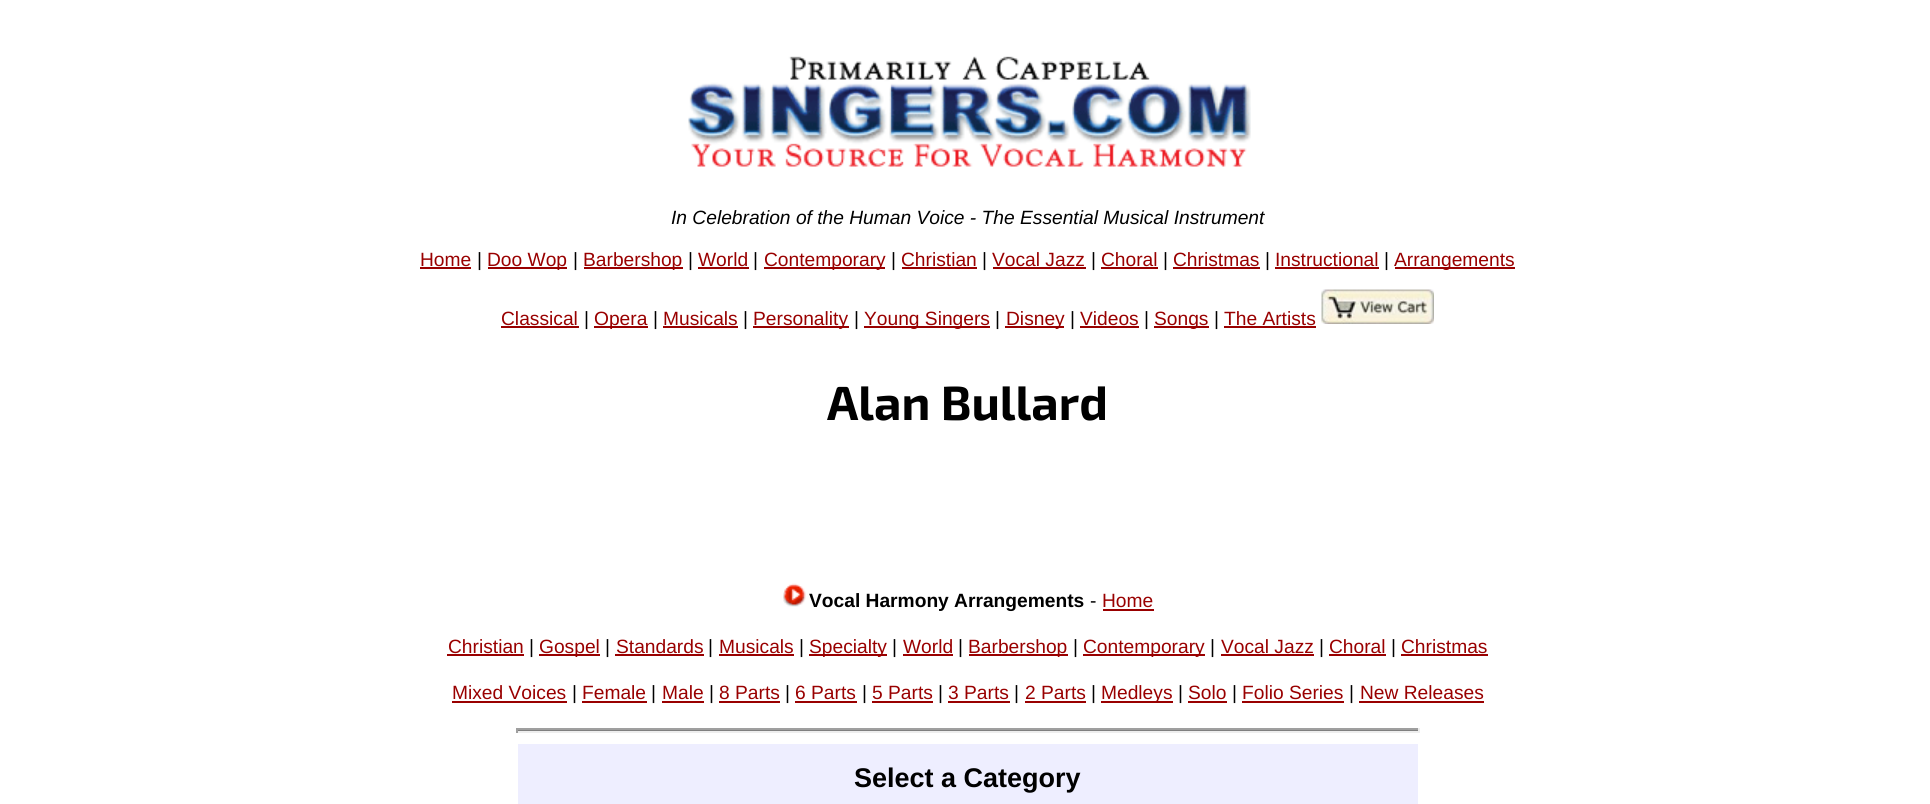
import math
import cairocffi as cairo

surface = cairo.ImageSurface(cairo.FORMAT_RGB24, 1930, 804)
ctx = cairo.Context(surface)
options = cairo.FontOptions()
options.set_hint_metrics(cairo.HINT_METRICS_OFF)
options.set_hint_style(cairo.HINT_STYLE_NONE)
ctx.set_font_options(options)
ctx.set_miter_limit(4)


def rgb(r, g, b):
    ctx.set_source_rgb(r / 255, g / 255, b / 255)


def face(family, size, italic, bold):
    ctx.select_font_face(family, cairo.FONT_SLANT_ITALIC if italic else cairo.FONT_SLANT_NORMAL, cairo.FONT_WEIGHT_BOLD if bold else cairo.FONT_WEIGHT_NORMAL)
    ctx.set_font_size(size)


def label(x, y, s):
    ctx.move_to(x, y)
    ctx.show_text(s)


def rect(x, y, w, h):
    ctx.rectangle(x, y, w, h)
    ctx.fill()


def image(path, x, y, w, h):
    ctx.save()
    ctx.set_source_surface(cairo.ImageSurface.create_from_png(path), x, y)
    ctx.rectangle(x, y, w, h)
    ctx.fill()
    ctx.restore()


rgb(255, 255, 255)
ctx.paint()
image('image0.png', 688, 56, 563, 111)
face('Liberation Sans', 19.2, 1, 0)
rgb(0, 0, 0)
label(671, 224, 'In Celebration of the Human Voice - The Essential Musical Instrument')
face('Liberation Sans', 19.2, 0, 0)
rgb(153, 0, 0)
label(420, 266, 'Home')
rect(420, 267, 51, 2)
rgb(0, 0, 0)
label(477, 266, '|')
rgb(153, 0, 0)
rect(488, 267, 79, 2)
label(487, 266, 'Doo Wop')
rgb(0, 0, 0)
label(573, 266, '|')
rgb(153, 0, 0)
rect(584, 267, 99, 2)
label(583, 266, 'Barbershop')
rgb(0, 0, 0)
label(688, 266, '|')
rgb(153, 0, 0)
label(698, 266, 'World')
rect(698, 267, 51, 2)
rgb(0, 0, 0)
label(753, 266, '|')
rgb(153, 0, 0)
rect(764, 267, 121, 2)
label(764, 266, 'Contemporary')
rgb(0, 0, 0)
label(891, 266, '|')
rgb(153, 0, 0)
label(901, 266, 'Christian')
rect(902, 267, 75, 2)
rgb(0, 0, 0)
label(982, 266, '|')
rgb(153, 0, 0)
label(992, 266, 'Vocal Jazz')
rect(993, 267, 93, 2)
rgb(0, 0, 0)
label(1091, 266, '|')
rgb(153, 0, 0)
label(1101, 266, 'Choral')
rect(1101, 267, 57, 2)
rgb(0, 0, 0)
label(1163, 266, '|')
rgb(153, 0, 0)
label(1173, 266, 'Christmas')
rect(1173, 267, 87, 2)
rgb(0, 0, 0)
label(1265, 266, '|')
rgb(153, 0, 0)
label(1275, 266, 'Instructional')
rect(1275, 267, 104, 2)
rgb(0, 0, 0)
label(1384, 266, '|')
rgb(153, 0, 0)
rect(1395, 267, 120, 2)
label(1394, 266, 'Arrangements')
label(501, 325, 'Classical')
rect(501, 326, 78, 2)
rgb(0, 0, 0)
label(584, 325, '|')
rgb(153, 0, 0)
rect(594, 326, 54, 2)
label(594, 325, 'Opera')
rgb(0, 0, 0)
label(653, 325, '|')
rgb(153, 0, 0)
label(663, 325, 'Musicals')
rect(663, 326, 75, 2)
rgb(0, 0, 0)
label(743, 325, '|')
rgb(153, 0, 0)
rect(753, 326, 96, 2)
label(753, 325, 'Personality')
rgb(0, 0, 0)
label(854, 325, '|')
rgb(153, 0, 0)
rect(864, 326, 126, 2)
label(864, 325, 'Young Singers')
rgb(0, 0, 0)
label(995, 325, '|')
rgb(153, 0, 0)
rect(1005, 326, 59, 2)
label(1006, 325, 'Disney')
rgb(0, 0, 0)
label(1070, 325, '|')
rgb(153, 0, 0)
label(1080, 325, 'Videos')
rect(1080, 326, 59, 2)
rgb(0, 0, 0)
label(1144, 325, '|')
rgb(153, 0, 0)
rect(1154, 326, 55, 2)
label(1154, 325, 'Songs')
rgb(0, 0, 0)
label(1214, 325, '|')
rgb(153, 0, 0)
label(1224, 325, 'The Artists')
rect(1224, 326, 92, 2)
image('image1.png', 1321, 289, 113, 35)
face('Exo 2', 48, 0, 1)
rgb(0, 0, 0)
label(827, 420, 'Alan Bullard')
image('image2.png', 783, 583, 23, 24)
face('Liberation Sans', 19.2, 0, 1)
label(809, 607, 'Vocal Harmony Arrangements')
face('Liberation Sans', 19.2, 0, 0)
label(1090, 607, '-')
rgb(153, 0, 0)
label(1102, 607, 'Home')
rect(1103, 609, 51, 2)
label(448, 653, 'Christian')
rect(447, 654, 77, 2)
rgb(0, 0, 0)
label(529, 653, '|')
rgb(153, 0, 0)
rect(539, 654, 61, 2)
label(539, 653, 'Gospel')
rgb(0, 0, 0)
label(605, 653, '|')
rgb(153, 0, 0)
label(616, 653, 'Standards')
rect(615, 654, 89, 2)
rgb(0, 0, 0)
label(708, 653, '|')
rgb(153, 0, 0)
label(719, 653, 'Musicals')
rect(719, 654, 75, 2)
rgb(0, 0, 0)
label(799, 653, '|')
rgb(153, 0, 0)
rect(809, 654, 78, 2)
label(809, 653, 'Specialty')
rgb(0, 0, 0)
label(892, 653, '|')
rgb(153, 0, 0)
label(903, 653, 'World')
rect(903, 654, 50, 2)
rgb(0, 0, 0)
label(958, 653, '|')
rgb(153, 0, 0)
rect(969, 654, 99, 2)
label(968, 653, 'Barbershop')
rgb(0, 0, 0)
label(1073, 653, '|')
rgb(153, 0, 0)
rect(1083, 654, 122, 2)
label(1083, 653, 'Contemporary')
rgb(0, 0, 0)
label(1210, 653, '|')
rgb(153, 0, 0)
label(1221, 653, 'Vocal Jazz')
rect(1221, 654, 93, 2)
rgb(0, 0, 0)
label(1319, 653, '|')
rgb(153, 0, 0)
label(1329, 653, 'Choral')
rect(1329, 654, 57, 2)
rgb(0, 0, 0)
label(1391, 653, '|')
rgb(153, 0, 0)
label(1401, 653, 'Christmas')
rect(1401, 654, 87, 2)
label(452, 699, 'Mixed Voices')
rect(452, 701, 115, 2)
rgb(0, 0, 0)
label(572, 699, '|')
rgb(153, 0, 0)
label(582, 699, 'Female')
rect(582, 701, 65, 2)
rgb(0, 0, 0)
label(651, 699, '|')
rgb(153, 0, 0)
label(662, 699, 'Male')
rect(662, 701, 42, 2)
rgb(0, 0, 0)
label(709, 699, '|')
rgb(153, 0, 0)
label(719, 699, '8 Parts')
rect(719, 701, 61, 2)
rgb(0, 0, 0)
label(785, 699, '|')
rgb(153, 0, 0)
label(795, 699, '6 Parts')
rect(795, 701, 62, 2)
rgb(0, 0, 0)
label(862, 699, '|')
rgb(153, 0, 0)
label(872, 699, '5 Parts')
rect(872, 701, 61, 2)
rgb(0, 0, 0)
label(938, 699, '|')
rgb(153, 0, 0)
label(948, 699, '3 Parts')
rect(948, 701, 62, 2)
rgb(0, 0, 0)
label(1014, 699, '|')
rgb(153, 0, 0)
label(1025, 699, '2 Parts')
rect(1025, 701, 61, 2)
rgb(0, 0, 0)
label(1091, 699, '|')
rgb(153, 0, 0)
rect(1101, 701, 72, 2)
label(1101, 699, 'Medleys')
rgb(0, 0, 0)
label(1178, 699, '|')
rgb(153, 0, 0)
label(1188, 699, 'Solo')
rect(1188, 701, 39, 2)
rgb(0, 0, 0)
label(1232, 699, '|')
rgb(153, 0, 0)
label(1242, 699, 'Folio Series')
rect(1242, 701, 102, 2)
rgb(0, 0, 0)
label(1349, 699, '|')
rgb(153, 0, 0)
label(1360, 699, 'New Releases')
rect(1359, 701, 125, 2)
rgb(128, 128, 128)
rect(516, 730, 903, 1)
rgb(159, 159, 159)
rect(516, 728, 903, 2)
rgb(238, 238, 238)
rect(1418, 728, 2, 5)
rect(516, 731, 903, 2)
rgb(159, 159, 159)
rect(516, 728, 2, 5)
rgb(238, 238, 255)
rect(518, 744, 900, 60)
face('Liberation Sans', 27, 0, 1)
rgb(0, 0, 0)
label(854, 787, 'Select a Category')
surface.write_to_png('render.png')
